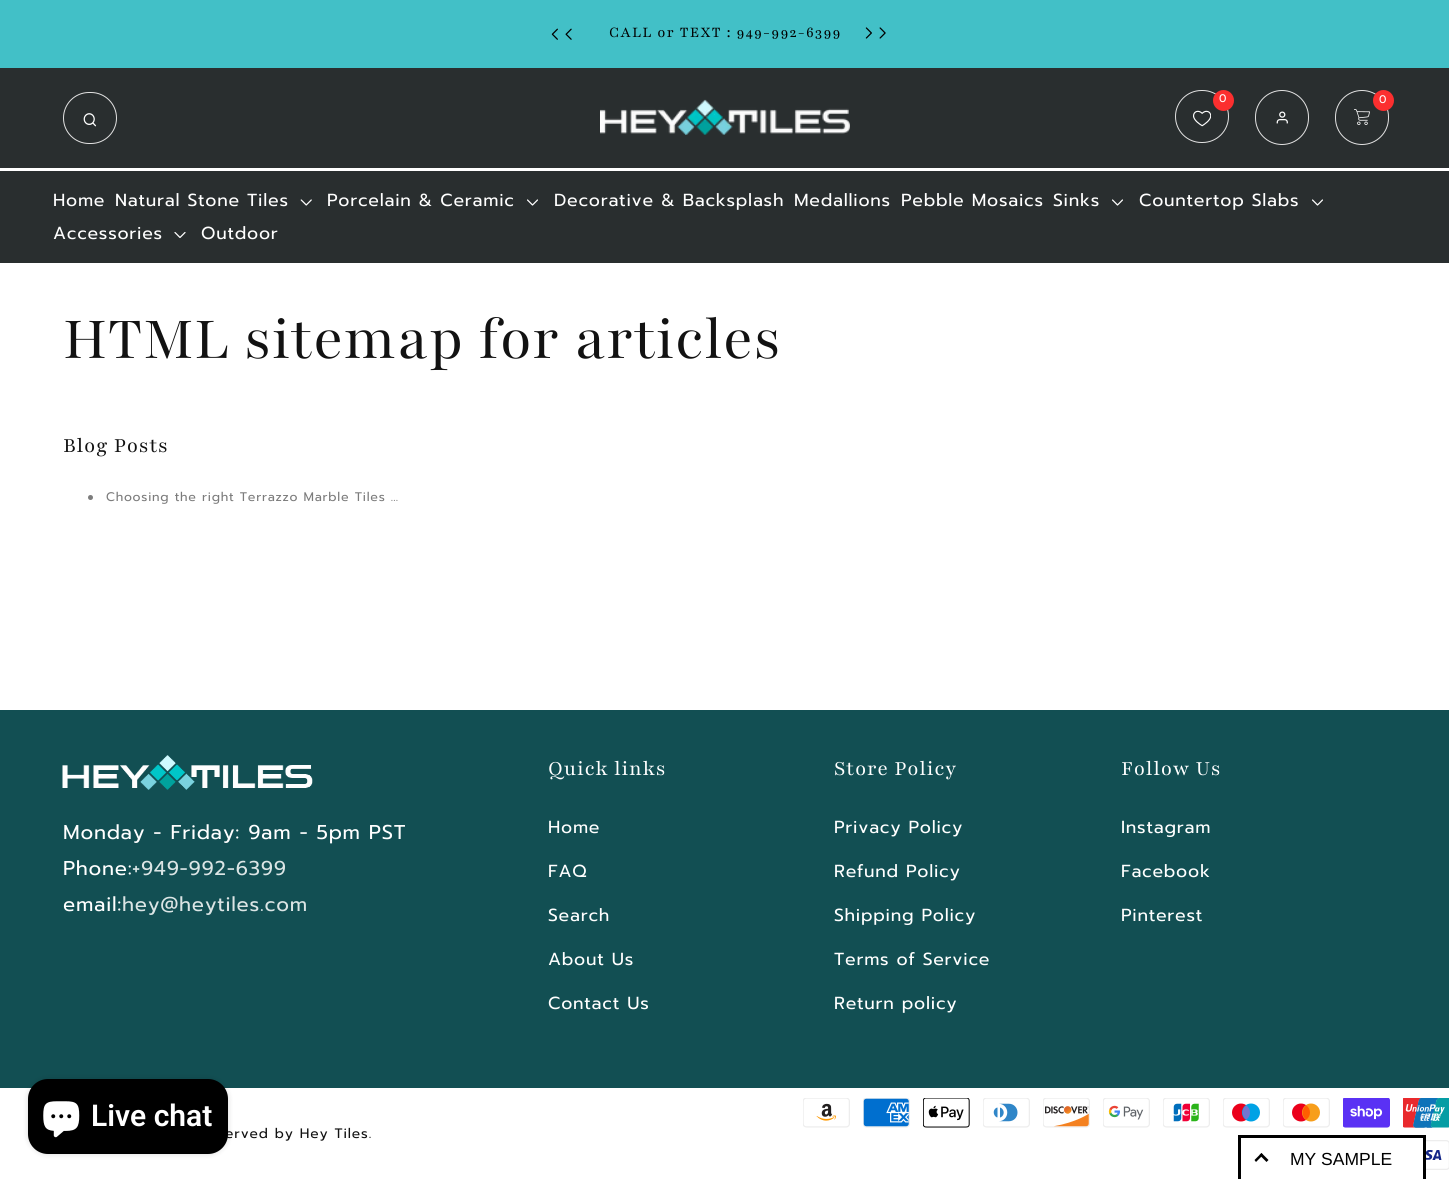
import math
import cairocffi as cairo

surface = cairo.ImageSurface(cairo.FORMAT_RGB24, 1449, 1179)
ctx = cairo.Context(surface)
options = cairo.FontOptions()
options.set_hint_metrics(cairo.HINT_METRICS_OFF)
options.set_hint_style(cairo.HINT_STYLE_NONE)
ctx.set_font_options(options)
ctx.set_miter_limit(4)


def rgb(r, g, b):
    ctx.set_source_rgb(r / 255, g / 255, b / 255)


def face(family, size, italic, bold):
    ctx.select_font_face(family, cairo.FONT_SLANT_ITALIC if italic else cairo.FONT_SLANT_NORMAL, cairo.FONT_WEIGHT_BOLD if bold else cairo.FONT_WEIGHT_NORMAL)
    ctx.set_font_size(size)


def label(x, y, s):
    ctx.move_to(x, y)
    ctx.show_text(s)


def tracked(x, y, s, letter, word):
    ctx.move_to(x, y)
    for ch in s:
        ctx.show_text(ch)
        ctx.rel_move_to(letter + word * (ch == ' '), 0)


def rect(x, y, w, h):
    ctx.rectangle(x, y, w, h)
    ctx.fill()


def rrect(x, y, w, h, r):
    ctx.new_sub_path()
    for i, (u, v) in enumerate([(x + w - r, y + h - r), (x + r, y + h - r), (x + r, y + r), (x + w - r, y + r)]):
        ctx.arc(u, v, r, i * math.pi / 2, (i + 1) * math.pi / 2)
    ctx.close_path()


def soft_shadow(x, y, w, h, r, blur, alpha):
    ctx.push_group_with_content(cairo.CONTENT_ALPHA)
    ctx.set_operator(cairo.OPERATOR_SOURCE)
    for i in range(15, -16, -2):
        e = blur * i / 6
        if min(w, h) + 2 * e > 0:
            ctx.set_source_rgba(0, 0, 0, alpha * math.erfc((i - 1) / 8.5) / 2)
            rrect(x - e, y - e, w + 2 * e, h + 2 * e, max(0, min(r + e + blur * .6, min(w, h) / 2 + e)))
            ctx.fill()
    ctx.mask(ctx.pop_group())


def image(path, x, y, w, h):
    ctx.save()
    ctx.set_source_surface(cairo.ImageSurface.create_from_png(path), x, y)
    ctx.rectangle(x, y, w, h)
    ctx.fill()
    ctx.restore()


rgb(255, 255, 255)
ctx.paint()
rgb(66, 192, 199)
rect(0, 0, 1449, 68)
image('image0.png', 551, 28, 7, 12)
image('image1.png', 565, 28, 7, 12)
face('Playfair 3', 16.25, 0, 0)
rgb(0, 0, 0)
tracked(609, 37, 'CALL or TEXT : 949-992-6399', 1.25, 0)
image('image2.png', 865, 27, 7, 12)
image('image3.png', 879, 27, 7, 12)
rgb(41, 46, 47)
rect(0, 68, 1449, 195)
image('image4.png', 63, 92, 54, 52)
image('image5.png', 600, 99, 250, 36)
image('image6.png', 1175, 90, 54, 53)
rgb(252, 47, 47)
ctx.arc(1223.5, 100.5, 10.5, 0, 2 * math.pi)
ctx.fill()
face('Prompt', 11, 0, 0)
rgb(255, 255, 255)
tracked(1219, 102, '0', 0.75, 0)
image('image7.png', 1255, 90, 54, 55)
image('image8.png', 1335, 90, 54, 55)
rgb(252, 47, 47)
ctx.arc(1383.5, 100.5, 10.5, 0, 2 * math.pi)
ctx.fill()
rgb(255, 255, 255)
tracked(1379, 103, '0', 0.75, 0)
rect(0, 168, 1449, 3)
face('Prompt', 17.5, 0, 0)
tracked(53, 206, 'Home', 0.75, 0)
tracked(115, 206, 'Natural Stone Tiles', 0.75, 0)
image('image9.png', 300, 199, 12, 7)
tracked(327, 206, 'Porcelain & Ceramic', 0.75, 0)
image('image10.png', 527, 199, 11, 7)
tracked(554, 206, 'Decorative & Backsplash', 0.75, 0)
tracked(794, 206, 'Medallions', 0.75, 0)
tracked(901, 206, 'Pebble Mosaics', 0.75, 0)
tracked(1053, 206, 'Sinks', 0.75, 0)
image('image10.png', 1112, 199, 11, 7)
tracked(1139, 206, 'Countertop Slabs', 0.75, 0)
image('image10.png', 1312, 199, 11, 7)
tracked(53, 239, 'Accessories', 0.75, 0)
image('image11.png', 174, 232, 12, 6)
tracked(201, 239, 'Outdoor', 0.75, 0)
face('Playfair', 65, 0, 0)
rgb(18, 18, 18)
tracked(63, 358, 'HTML sitemap for articles', 0.75, 0)
face('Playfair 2', 22.5, 0, 0)
tracked(63, 452, 'Blog Posts', 0.75, 0)
rgb(124, 124, 124)
ctx.new_path()
ctx.arc(90.5, 497.5, 2.5, 0, 2 * math.pi)
ctx.fill()
face('Prompt', 12.5, 0, 0)
tracked(106, 501, 'Choosing the right Terrazzo Marble Tiles …', 0.75, 0)
rgb(18, 79, 83)
rect(0, 710, 1449, 378)
image('image12.png', 62, 755, 251, 35)
face('Prompt', 20, 0, 0)
rgb(255, 255, 255)
tracked(63, 839, 'Monday - Friday: 9am - 5pm PST', 0.75, 0)
tracked(63, 875, 'Phone:', 0.75, 0)
rgb(219, 229, 229)
tracked(132, 875, '+949-992-6399', 0.75, 0)
rgb(255, 255, 255)
tracked(63, 911, 'email:', 0.75, 0)
rgb(219, 229, 229)
tracked(122, 911, 'hey@heytiles.com', 0.75, 0)
face('Playfair 2', 22.5, 0, 0)
rgb(255, 255, 255)
tracked(548, 775, 'Quick links', 0.75, 0)
face('Prompt', 17.5, 0, 0)
tracked(548, 833, 'Home', 0.75, 0)
tracked(548, 877, 'FAQ', 0.75, 0)
tracked(548, 921, 'Search', 0.75, 0)
tracked(548, 965, 'About Us', 0.75, 0)
tracked(548, 1009, 'Contact Us', 0.75, 0)
face('Playfair 2', 22.5, 0, 0)
tracked(834, 775, 'Store Policy', 0.75, 0)
face('Prompt', 17.5, 0, 0)
tracked(834, 833, 'Privacy Policy', 0.75, 0)
tracked(834, 877, 'Refund Policy', 0.75, 0)
tracked(834, 921, 'Shipping Policy', 0.75, 0)
tracked(834, 965, 'Terms of Service', 0.75, 0)
tracked(834, 1009, 'Return policy', 0.75, 0)
face('Playfair 2', 22.5, 0, 0)
tracked(1121, 775, 'Follow Us', 0.75, 0)
face('Prompt', 17.5, 0, 0)
tracked(1121, 833, 'Instagram', 0.75, 0)
tracked(1121, 877, 'Facebook', 0.75, 0)
tracked(1121, 921, 'Pinterest', 0.75, 0)
rgb(0, 0, 0)
soft_shadow(28, 1079, 200, 75, 20, 3, 0.15)
face('Prompt', 13.75, 0, 0)
rgb(18, 18, 18)
tracked(225, 1138, 'erved by Hey Tiles.', 0.9, 0)
rgb(0, 0, 0)
rrect(28, 1079, 200, 75, 20)
ctx.fill()
image('image13.png', 43, 1101, 37, 37)
face('Roboto SemiBold', 30, 0, 0)
rgb(255, 255, 255)
label(91, 1126, 'Live chat')
image('image14.png', 803, 1098, 47, 30)
image('image15.png', 863, 1098, 47, 30)
image('image16.png', 923, 1098, 47, 30)
image('image17.png', 983, 1098, 47, 30)
image('image18.png', 1043, 1098, 47, 30)
image('image19.png', 1103, 1098, 47, 30)
image('image20.png', 1163, 1098, 47, 30)
image('image21.png', 1223, 1098, 47, 30)
image('image22.png', 1283, 1098, 47, 30)
image('image23.png', 1343, 1098, 47, 30)
image('image24.png', 1403, 1098, 46, 30)
image('image25.png', 1426, 1140, 23, 30)
rgb(0, 0, 0)
rect(1238, 1135, 187, 3)
rect(1423, 1135, 3, 44)
rect(1238, 1135, 3, 44)
ctx.new_path()
ctx.move_to(1261.5, 1153)
ctx.line_to(1268.5, 1160)
ctx.line_to(1266.5, 1162)
ctx.line_to(1259.5, 1155)
ctx.close_path()
ctx.fill()
ctx.new_path()
ctx.move_to(1261.5, 1153)
ctx.line_to(1263, 1155)
ctx.line_to(1256, 1162)
ctx.line_to(1254.5, 1160)
ctx.close_path()
ctx.fill()
face('Liberation Sans', 17.5, 0, 0)
label(1290, 1165, 'MY SAMPLE')
surface.write_to_png('render.png')
